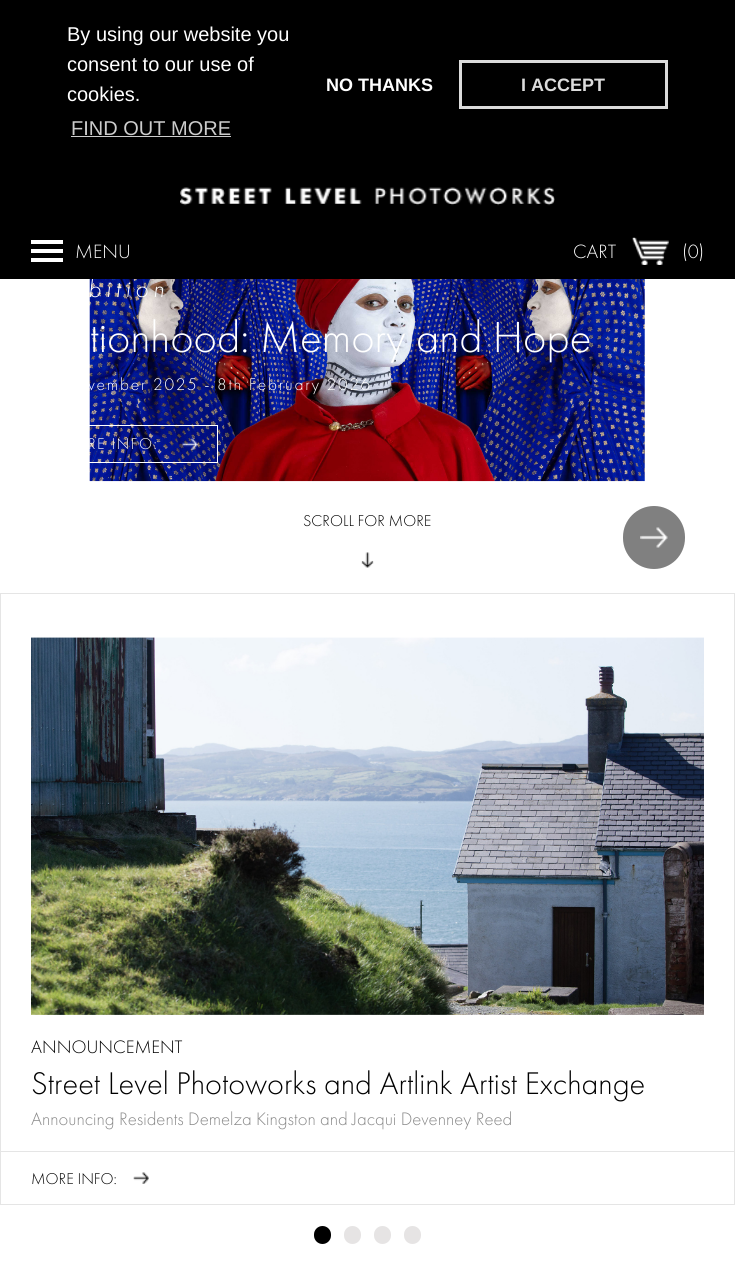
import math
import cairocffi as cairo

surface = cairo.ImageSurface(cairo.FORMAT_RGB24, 735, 1279)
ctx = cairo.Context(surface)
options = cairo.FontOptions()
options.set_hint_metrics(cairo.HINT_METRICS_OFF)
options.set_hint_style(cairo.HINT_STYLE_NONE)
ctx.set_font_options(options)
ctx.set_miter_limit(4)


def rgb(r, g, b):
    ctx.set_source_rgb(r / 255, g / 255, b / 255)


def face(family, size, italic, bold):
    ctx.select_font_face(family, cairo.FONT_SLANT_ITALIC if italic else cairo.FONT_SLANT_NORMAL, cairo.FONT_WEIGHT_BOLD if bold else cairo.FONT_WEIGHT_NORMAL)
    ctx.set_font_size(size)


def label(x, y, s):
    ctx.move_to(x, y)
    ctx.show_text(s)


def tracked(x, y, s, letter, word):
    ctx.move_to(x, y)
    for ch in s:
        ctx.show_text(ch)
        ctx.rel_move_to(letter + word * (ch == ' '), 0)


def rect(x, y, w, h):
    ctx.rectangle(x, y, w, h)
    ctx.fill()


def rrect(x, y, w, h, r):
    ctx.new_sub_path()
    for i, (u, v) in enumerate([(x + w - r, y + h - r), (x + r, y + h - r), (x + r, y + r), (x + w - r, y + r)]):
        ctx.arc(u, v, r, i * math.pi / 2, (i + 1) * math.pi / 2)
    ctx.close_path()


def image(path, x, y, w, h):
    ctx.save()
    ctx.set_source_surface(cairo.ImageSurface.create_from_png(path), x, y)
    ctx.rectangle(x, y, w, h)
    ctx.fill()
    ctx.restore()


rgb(255, 255, 255)
ctx.paint()
image('image3.png', 89, 279, 556, 203)
face('Futura PT Light', 25, 1, 0)
rgb(255, 255, 255)
tracked(88, 297, 'bition', 5, 0)
rgb(0, 0, 0)
rect(0, 0, 735, 279)
face('Liberation Sans', 20, 0, 0)
rgb(255, 255, 255)
label(67, 41, 'By using our website you')
label(67, 71, 'consent to our use of')
label(67, 101, 'cookies.')
rgb(204, 204, 204)
label(71, 135, 'FIND OUT MORE')
rect(71, 136, 160, 1)
face('Liberation Sans', 18, 0, 1)
rgb(255, 255, 255)
label(326, 91, 'NO THANKS')
ctx.rectangle(460.5, 61.5, 206, 46)
rgb(220, 220, 220)
ctx.set_line_width(3)
ctx.stroke()
label(521, 91, 'I ACCEPT')
image('image0.png', 180, 187, 375, 19)
rgb(255, 255, 255)
rect(31, 240, 32, 4)
rect(31, 249, 32, 4)
rect(31, 258, 32, 4)
face('Futura PT Light', 20, 0, 0)
label(75, 258, 'MENU')
label(573, 258, 'CART')
image('image1.png', 632, 237, 37, 28)
label(682, 258, '(0)')
face('Futura PT Light', 45, 0, 0)
label(90, 352, 'tionhood: Memory and Hope')
face('Futura PT Light', 17.5, 0, 0)
tracked(88, 390, 'vember 2025 - 8th February 2026', 1.75, 0)
image('image2.png', 182, 438, 16, 12)
ctx.rectangle(31.5, 425.5, 186, 37)
ctx.set_line_width(1)
ctx.stroke()
face('Futura PT Light', 16.25, 0, 0)
tracked(88, 449, 'RE INFO:', 1.5, 0)
rgb(128, 128, 128)
rrect(623, 506, 62, 63, 31)
ctx.fill()
image('image4.png', 640, 527, 28, 21)
rgb(0, 0, 0)
label(303, 526, 'SCROLL FOR MORE')
image('image5.png', 361, 552, 13, 16)
ctx.rectangle(-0.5, 593.5, 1, 611)
rgb(229, 229, 229)
ctx.stroke()
ctx.rectangle(734.5, 593.5, 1, 611)
ctx.stroke()
ctx.rectangle(-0.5, 593.5, 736, 611)
ctx.stroke()
image('image6.png', 31, 637, 673, 378)
face('Futura PT Light', 18.75, 0, 0)
rgb(0, 0, 0)
label(31, 1053, 'ANNOUNCEMENT')
face('Futura PT Light', 32.5, 0, 0)
label(31, 1094, 'Street Level Photoworks and Artlink Artist Exchange')
face('Futura PT Light', 18.75, 0, 0)
rgb(136, 136, 136)
label(31, 1125, 'Announcing Residents Demelza Kingston and Jacqui Devenney Reed')
rgb(229, 229, 229)
rect(0, 1151, 735, 1)
face('Futura PT Light', 16.25, 0, 0)
rgb(0, 0, 0)
label(31, 1184, 'MORE INFO:')
image('image7.png', 133, 1172, 16, 12)
rrect(314, 1226, 17, 18, 8.5)
ctx.fill()
rgb(230, 228, 228)
rrect(344, 1226, 17, 18, 8.5)
ctx.fill()
rrect(374, 1226, 17, 18, 8.5)
ctx.fill()
rrect(404, 1226, 17, 18, 8.5)
ctx.fill()
surface.write_to_png('render.png')
